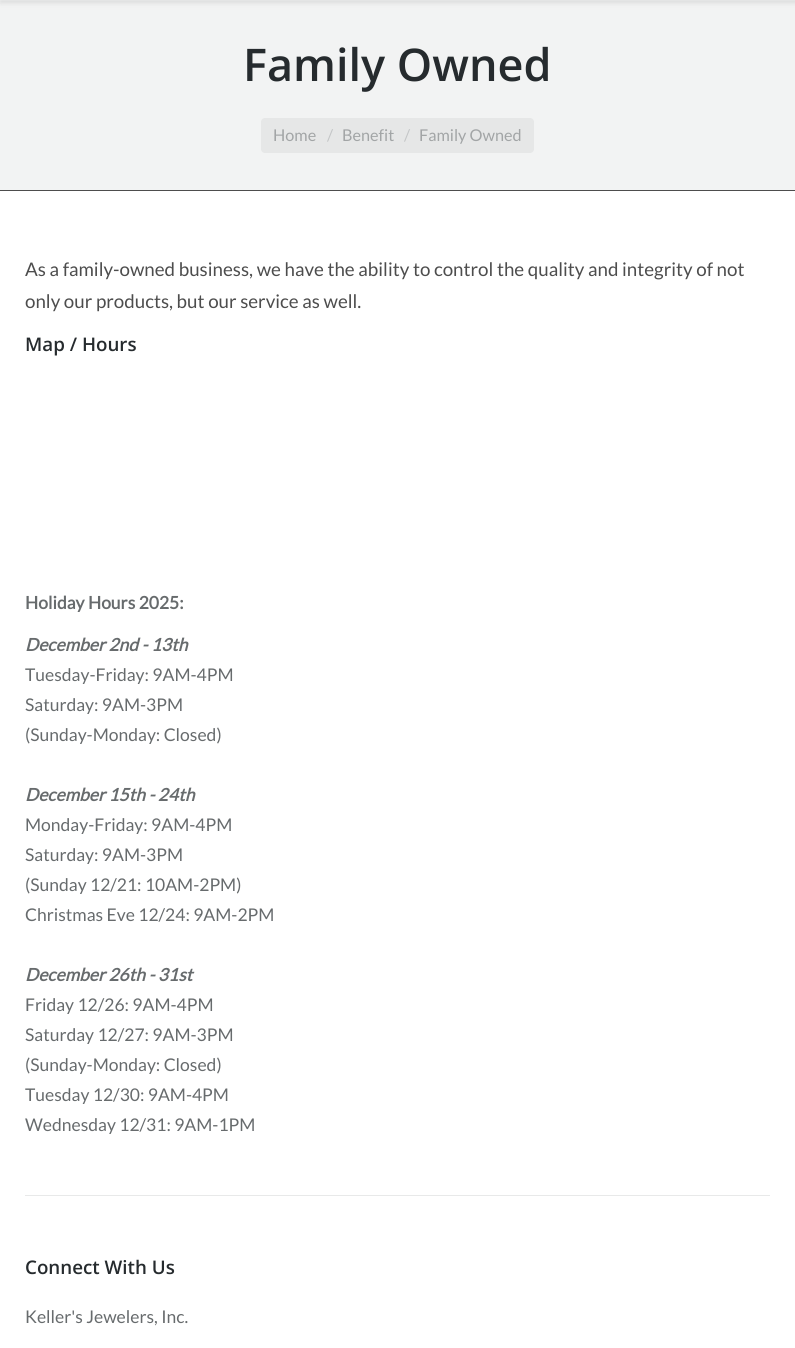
import math
import cairocffi as cairo

surface = cairo.ImageSurface(cairo.FORMAT_RGB24, 795, 1348)
ctx = cairo.Context(surface)
options = cairo.FontOptions()
options.set_hint_metrics(cairo.HINT_METRICS_OFF)
options.set_hint_style(cairo.HINT_STYLE_NONE)
ctx.set_font_options(options)
ctx.set_miter_limit(4)


def rgb(r, g, b):
    ctx.set_source_rgb(r / 255, g / 255, b / 255)


def face(family, size, italic, bold):
    ctx.select_font_face(family, cairo.FONT_SLANT_ITALIC if italic else cairo.FONT_SLANT_NORMAL, cairo.FONT_WEIGHT_BOLD if bold else cairo.FONT_WEIGHT_NORMAL)
    ctx.set_font_size(size)


def label(x, y, s):
    ctx.move_to(x, y)
    ctx.show_text(s)


def rect(x, y, w, h):
    ctx.rectangle(x, y, w, h)
    ctx.fill()


def rrect(x, y, w, h, r):
    ctx.new_sub_path()
    for i, (u, v) in enumerate([(x + w - r, y + h - r), (x + r, y + h - r), (x + r, y + r), (x + w - r, y + r)]):
        ctx.arc(u, v, r, i * math.pi / 2, (i + 1) * math.pi / 2)
    ctx.close_path()


def soft_shadow(x, y, w, h, r, blur, alpha):
    ctx.push_group_with_content(cairo.CONTENT_ALPHA)
    ctx.set_operator(cairo.OPERATOR_SOURCE)
    for i in range(15, -16, -2):
        e = blur * i / 6
        if min(w, h) + 2 * e > 0:
            ctx.set_source_rgba(0, 0, 0, alpha * math.erfc((i - 1) / 8.5) / 2)
            rrect(x - e, y - e, w + 2 * e, h + 2 * e, max(0, min(r + e + blur * .6, min(w, h) / 2 + e)))
            ctx.fill()
    ctx.mask(ctx.pop_group())


rgb(255, 255, 255)
ctx.paint()
rgb(242, 243, 243)
rect(0, 0, 795, 190)
rgb(0, 0, 0)
soft_shadow(0, 0, 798, 3, 0, 2.5, 0.1)
rgb(77, 77, 77)
rect(0, 190, 795, 1)
face('Open Sans SemiBold', 45, 0, 0)
rgb(38, 43, 46)
label(243, 81, 'Family Owned')
rgb(230, 231, 231)
rrect(261, 118, 273, 35, 4)
ctx.fill()
face('Lato', 16.25, 0, 0)
rgb(162, 165, 166)
label(273, 141, 'Home')
rgb(196, 198, 199)
label(327, 141, '/')
rgb(162, 165, 166)
label(342, 141, 'Benefit')
rgb(196, 198, 199)
label(404, 141, '/')
rgb(162, 165, 166)
label(419, 141, 'Family Owned')
face('Lato', 18.75, 0, 0)
rgb(77, 77, 77)
label(25, 276, 'As a family-owned business, we have the ability to control the quality and integrity of not')
label(25, 308, 'only our products, but our service as well.')
face('Open Sans SemiBold', 18.75, 0, 0)
rgb(38, 43, 46)
label(25, 351, 'Map / Hours')
face('Lato', 17.5, 0, 1)
rgb(103, 107, 109)
label(25, 609, 'Holiday Hours 2025:')
face('Lato', 17.5, 1, 1)
label(25, 651, 'December 2nd - 13th')
face('Lato', 17.5, 0, 0)
label(25, 681, 'Tuesday-Friday: 9AM-4PM')
label(25, 711, 'Saturday: 9AM-3PM')
label(25, 741, '(Sunday-Monday: Closed)')
face('Lato', 17.5, 1, 1)
label(25, 801, 'December 15th - 24th')
face('Lato', 17.5, 0, 0)
label(25, 831, 'Monday-Friday: 9AM-4PM')
label(25, 861, 'Saturday: 9AM-3PM')
label(25, 891, '(Sunday 12/21: 10AM-2PM)')
label(25, 921, 'Christmas Eve 12/24: 9AM-2PM')
face('Lato', 17.5, 1, 1)
label(25, 981, 'December 26th - 31st')
face('Lato', 17.5, 0, 0)
label(25, 1011, 'Friday 12/26: 9AM-4PM')
label(25, 1041, 'Saturday 12/27: 9AM-3PM')
label(25, 1071, '(Sunday-Monday: Closed)')
label(25, 1101, 'Tuesday 12/30: 9AM-4PM')
label(25, 1131, 'Wednesday 12/31: 9AM-1PM')
rgb(232, 233, 233)
rect(25, 1195, 745, 1)
face('Open Sans SemiBold', 18.75, 0, 0)
rgb(38, 43, 46)
label(25, 1274, 'Connect With Us')
face('Lato', 17.5, 0, 0)
rgb(103, 107, 109)
label(25, 1323, 'Keller\'s Jewelers, Inc.')
surface.write_to_png('render.png')
